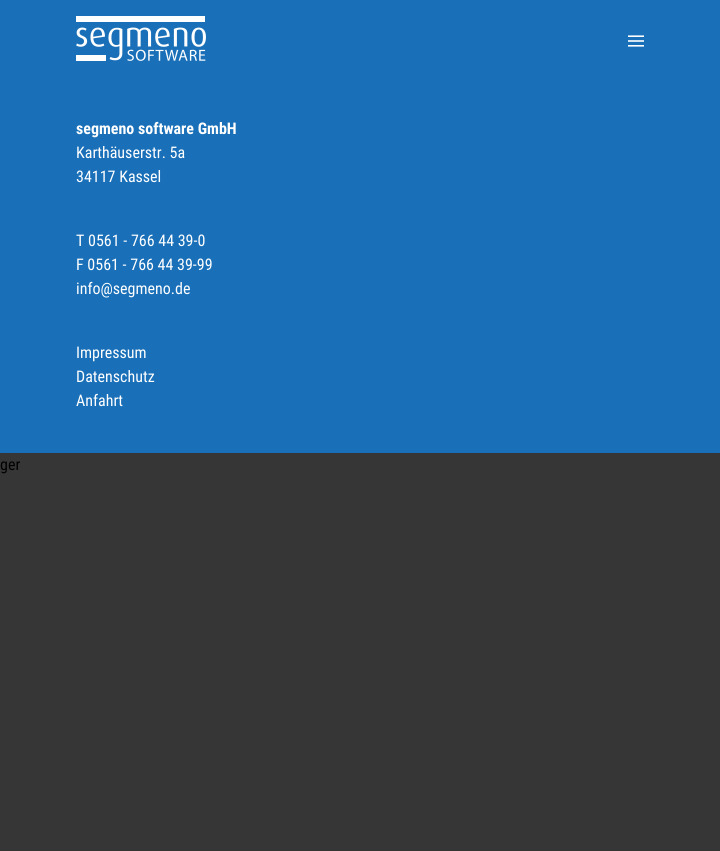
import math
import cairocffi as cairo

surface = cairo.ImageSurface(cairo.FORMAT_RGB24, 720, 851)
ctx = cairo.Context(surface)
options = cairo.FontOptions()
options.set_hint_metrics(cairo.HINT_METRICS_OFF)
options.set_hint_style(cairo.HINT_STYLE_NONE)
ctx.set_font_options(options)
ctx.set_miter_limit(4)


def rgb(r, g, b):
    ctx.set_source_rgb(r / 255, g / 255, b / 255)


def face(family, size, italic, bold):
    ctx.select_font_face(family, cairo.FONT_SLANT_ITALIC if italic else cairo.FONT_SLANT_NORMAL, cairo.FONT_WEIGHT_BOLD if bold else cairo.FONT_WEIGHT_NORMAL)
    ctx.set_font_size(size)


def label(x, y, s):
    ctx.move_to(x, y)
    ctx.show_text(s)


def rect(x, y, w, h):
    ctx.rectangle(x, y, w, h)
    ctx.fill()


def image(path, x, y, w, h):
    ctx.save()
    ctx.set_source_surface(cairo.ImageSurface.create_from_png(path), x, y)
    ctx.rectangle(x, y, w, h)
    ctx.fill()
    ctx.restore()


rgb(54, 54, 54)
ctx.paint()
rgb(26, 112, 184)
rect(0, 0, 720, 453)
image('image0.png', 76, 16, 130, 45)
image('image1.png', 628, 35, 16, 12)
face('Roboto Condensed', 16, 0, 1)
rgb(255, 255, 255)
label(76, 134, 'segmeno software GmbH')
face('Roboto Condensed', 16, 0, 0)
label(76, 158, 'Karthäuserstr. 5a')
label(76, 182, '34117 Kassel')
label(76, 246, 'T 0561 - 766 44 39-0')
label(76, 270, 'F 0561 - 766 44 39-99')
label(76, 294, 'info@segmeno.de')
label(76, 358, 'Impressum')
label(76, 382, 'Datenschutz')
label(76, 406, 'Anfahrt')
rgb(0, 0, 0)
label(0, 470, 'ger')
surface.write_to_png('render.png')
